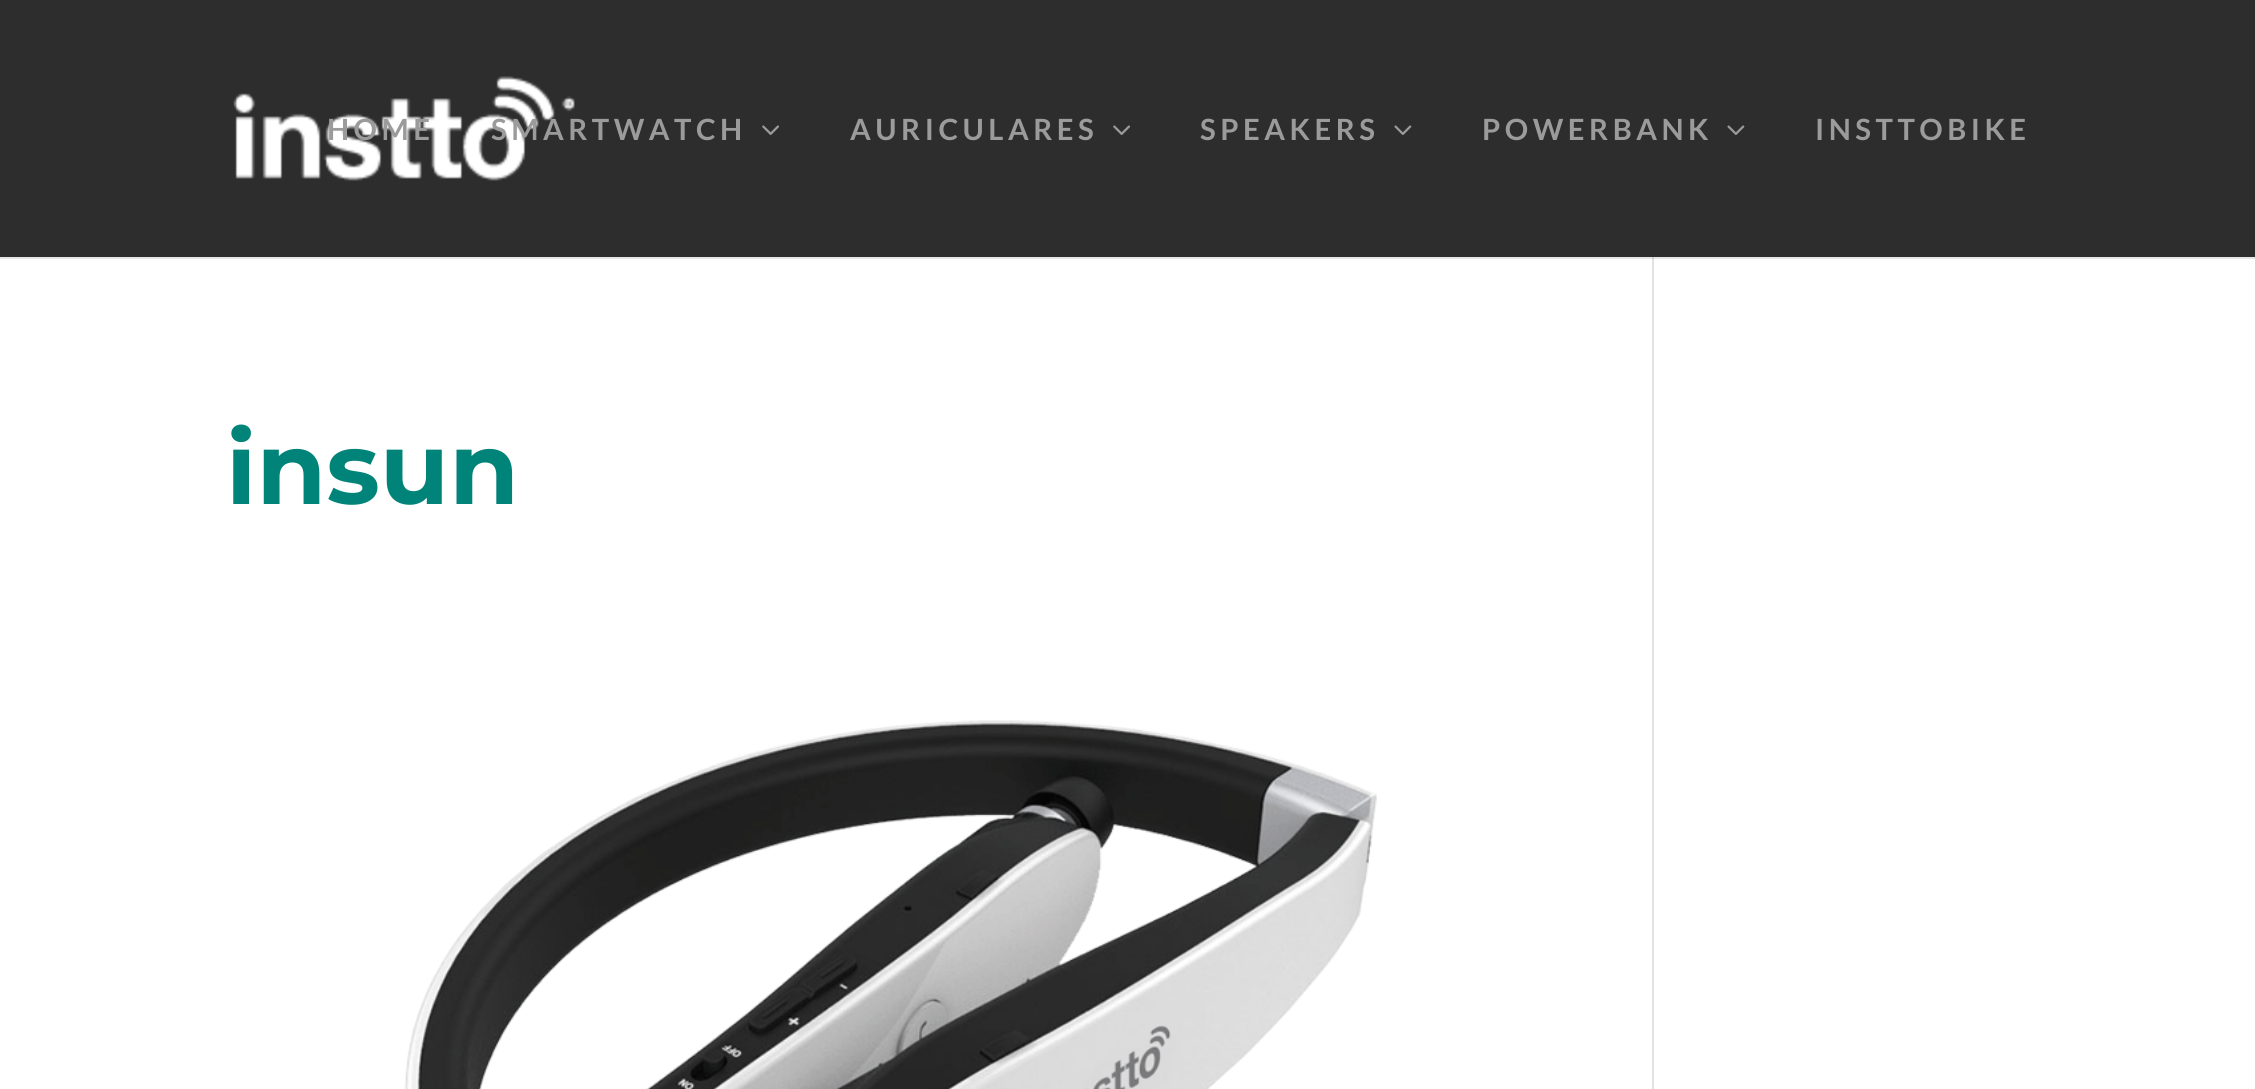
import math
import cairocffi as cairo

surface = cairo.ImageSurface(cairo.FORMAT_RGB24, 2255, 1089)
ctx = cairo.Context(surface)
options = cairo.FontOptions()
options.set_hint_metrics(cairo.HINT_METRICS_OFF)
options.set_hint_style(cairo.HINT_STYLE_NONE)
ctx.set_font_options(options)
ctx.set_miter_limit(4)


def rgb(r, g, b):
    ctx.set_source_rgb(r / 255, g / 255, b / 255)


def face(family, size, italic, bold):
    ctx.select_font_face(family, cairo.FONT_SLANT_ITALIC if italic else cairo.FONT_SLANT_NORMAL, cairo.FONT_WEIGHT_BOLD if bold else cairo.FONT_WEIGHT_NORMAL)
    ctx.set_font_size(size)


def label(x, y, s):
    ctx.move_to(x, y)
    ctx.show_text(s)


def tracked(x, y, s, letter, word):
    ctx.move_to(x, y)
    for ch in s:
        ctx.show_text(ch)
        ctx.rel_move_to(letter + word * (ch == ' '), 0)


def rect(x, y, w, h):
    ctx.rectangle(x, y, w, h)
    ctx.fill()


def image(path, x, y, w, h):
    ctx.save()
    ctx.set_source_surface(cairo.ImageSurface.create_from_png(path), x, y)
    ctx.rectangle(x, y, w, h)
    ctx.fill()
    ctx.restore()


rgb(255, 255, 255)
ctx.paint()
rgb(226, 226, 226)
rect(1652, 257, 2, 832)
ctx.set_source_rgba(0, 0, 0, 0.1)
ctx.new_path()
ctx.move_to(0, 256)
ctx.line_to(0, 259)
ctx.line_to(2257, 259)
ctx.line_to(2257, 2)
ctx.line_to(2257, 256)
ctx.close_path()
ctx.fill()
rgb(45, 45, 45)
rect(0, 0, 2255, 257)
image('image0.png', 233, 76, 342, 105)
face('Lato', 29.25, 0, 1)
rgb(155, 155, 155)
tracked(327, 140, 'HOME', 4.5, 0)
tracked(491, 140, 'SMARTWATCH', 4.5, 0)
image('image1.png', 762, 125, 17, 10)
tracked(850, 140, 'AURICULARES', 4.5, 0)
image('image1.png', 1113, 125, 17, 10)
tracked(1200, 140, 'SPEAKERS', 4.5, 0)
image('image2.png', 1394, 125, 18, 10)
tracked(1482, 140, 'POWERBANK', 4.5, 0)
image('image2.png', 1727, 125, 18, 10)
tracked(1815, 140, 'INSTTOBIKE', 4.5, 0)
face('Montserrat Thin', 101, 0, 0)
rgb(0, 131, 120)
label(226, 504, 'insun')
image('image3.png', 404, 720, 973, 369)
surface.write_to_png('render.png')
